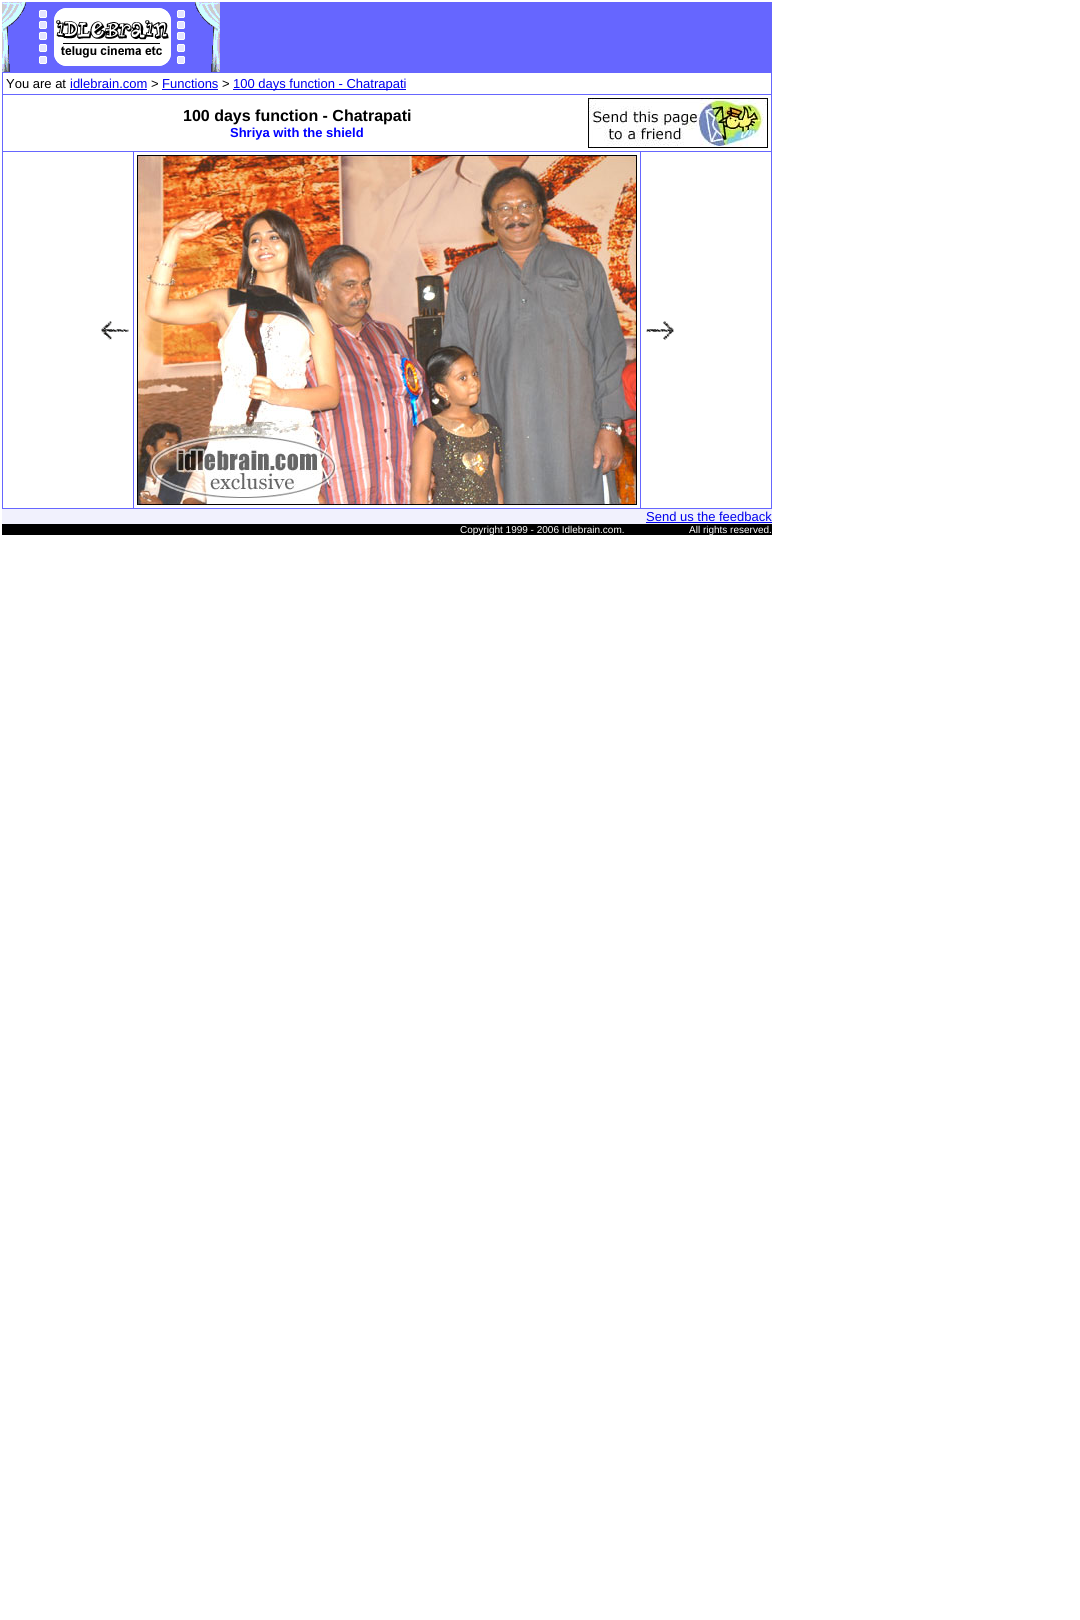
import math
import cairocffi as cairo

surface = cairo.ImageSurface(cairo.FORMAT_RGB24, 1080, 1620)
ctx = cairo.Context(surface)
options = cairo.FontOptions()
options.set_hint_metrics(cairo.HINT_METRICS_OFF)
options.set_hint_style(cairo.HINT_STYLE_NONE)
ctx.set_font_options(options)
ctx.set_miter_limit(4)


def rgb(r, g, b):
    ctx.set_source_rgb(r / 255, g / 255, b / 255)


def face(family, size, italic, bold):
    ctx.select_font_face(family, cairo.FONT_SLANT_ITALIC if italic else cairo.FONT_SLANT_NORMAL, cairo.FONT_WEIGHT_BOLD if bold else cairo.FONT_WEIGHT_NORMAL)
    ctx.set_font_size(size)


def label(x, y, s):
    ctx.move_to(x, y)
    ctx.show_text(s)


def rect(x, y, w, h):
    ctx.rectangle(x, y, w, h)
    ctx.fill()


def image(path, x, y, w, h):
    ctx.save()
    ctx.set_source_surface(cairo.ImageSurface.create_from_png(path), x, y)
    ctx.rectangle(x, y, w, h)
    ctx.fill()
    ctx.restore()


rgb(255, 255, 255)
ctx.paint()
rgb(102, 102, 255)
rect(26, 2, 746, 70)
image('image0.png', 2, 2, 24, 70)
image('image1.png', 39, 8, 146, 58)
image('image2.png', 195, 2, 25, 70)
rect(2, 72, 770, 437)
rgb(255, 255, 255)
rect(3, 73, 768, 21)
face('Liberation Sans', 13, 0, 0)
rgb(0, 0, 0)
label(6, 88, 'You are at')
rgb(0, 0, 238)
label(70, 88, 'idlebrain.com')
rect(70, 89, 77, 1)
rgb(0, 0, 0)
label(151, 88, '>')
rgb(0, 0, 238)
label(162, 88, 'Functions')
rect(162, 89, 56, 1)
rgb(0, 0, 0)
label(222, 88, '>')
rgb(0, 0, 238)
rect(233, 89, 173, 1)
label(233, 88, '100 days function - Chatrapati')
rgb(255, 255, 255)
rect(3, 95, 768, 56)
face('Liberation Sans', 16, 0, 1)
rgb(0, 0, 0)
label(183, 121, '100 days function - Chatrapati')
face('Liberation Sans', 13, 0, 1)
rgb(0, 0, 255)
label(230, 137, 'Shriya with the shield')
image('image3.png', 588, 98, 180, 50)
rgb(255, 255, 255)
rect(3, 152, 130, 356)
image('image4.png', 101, 321, 28, 19)
rect(134, 152, 506, 356)
image('image5.png', 137, 155, 500, 350)
rect(641, 152, 130, 356)
image('image6.png', 646, 321, 28, 19)
rgb(241, 241, 253)
rect(2, 509, 770, 15)
face('Liberation Sans', 13, 0, 0)
rgb(0, 0, 238)
label(646, 521, 'Send us the feedback')
rect(646, 522, 126, 1)
rgb(0, 0, 0)
rect(2, 524, 770, 11)
face('Liberation Sans', 10, 0, 0)
rgb(255, 255, 255)
label(460, 533, 'Copyright 1999 - 2006 Idlebrain.com.')
label(689, 533, 'All rights reserved.')
surface.write_to_png('render.png')
